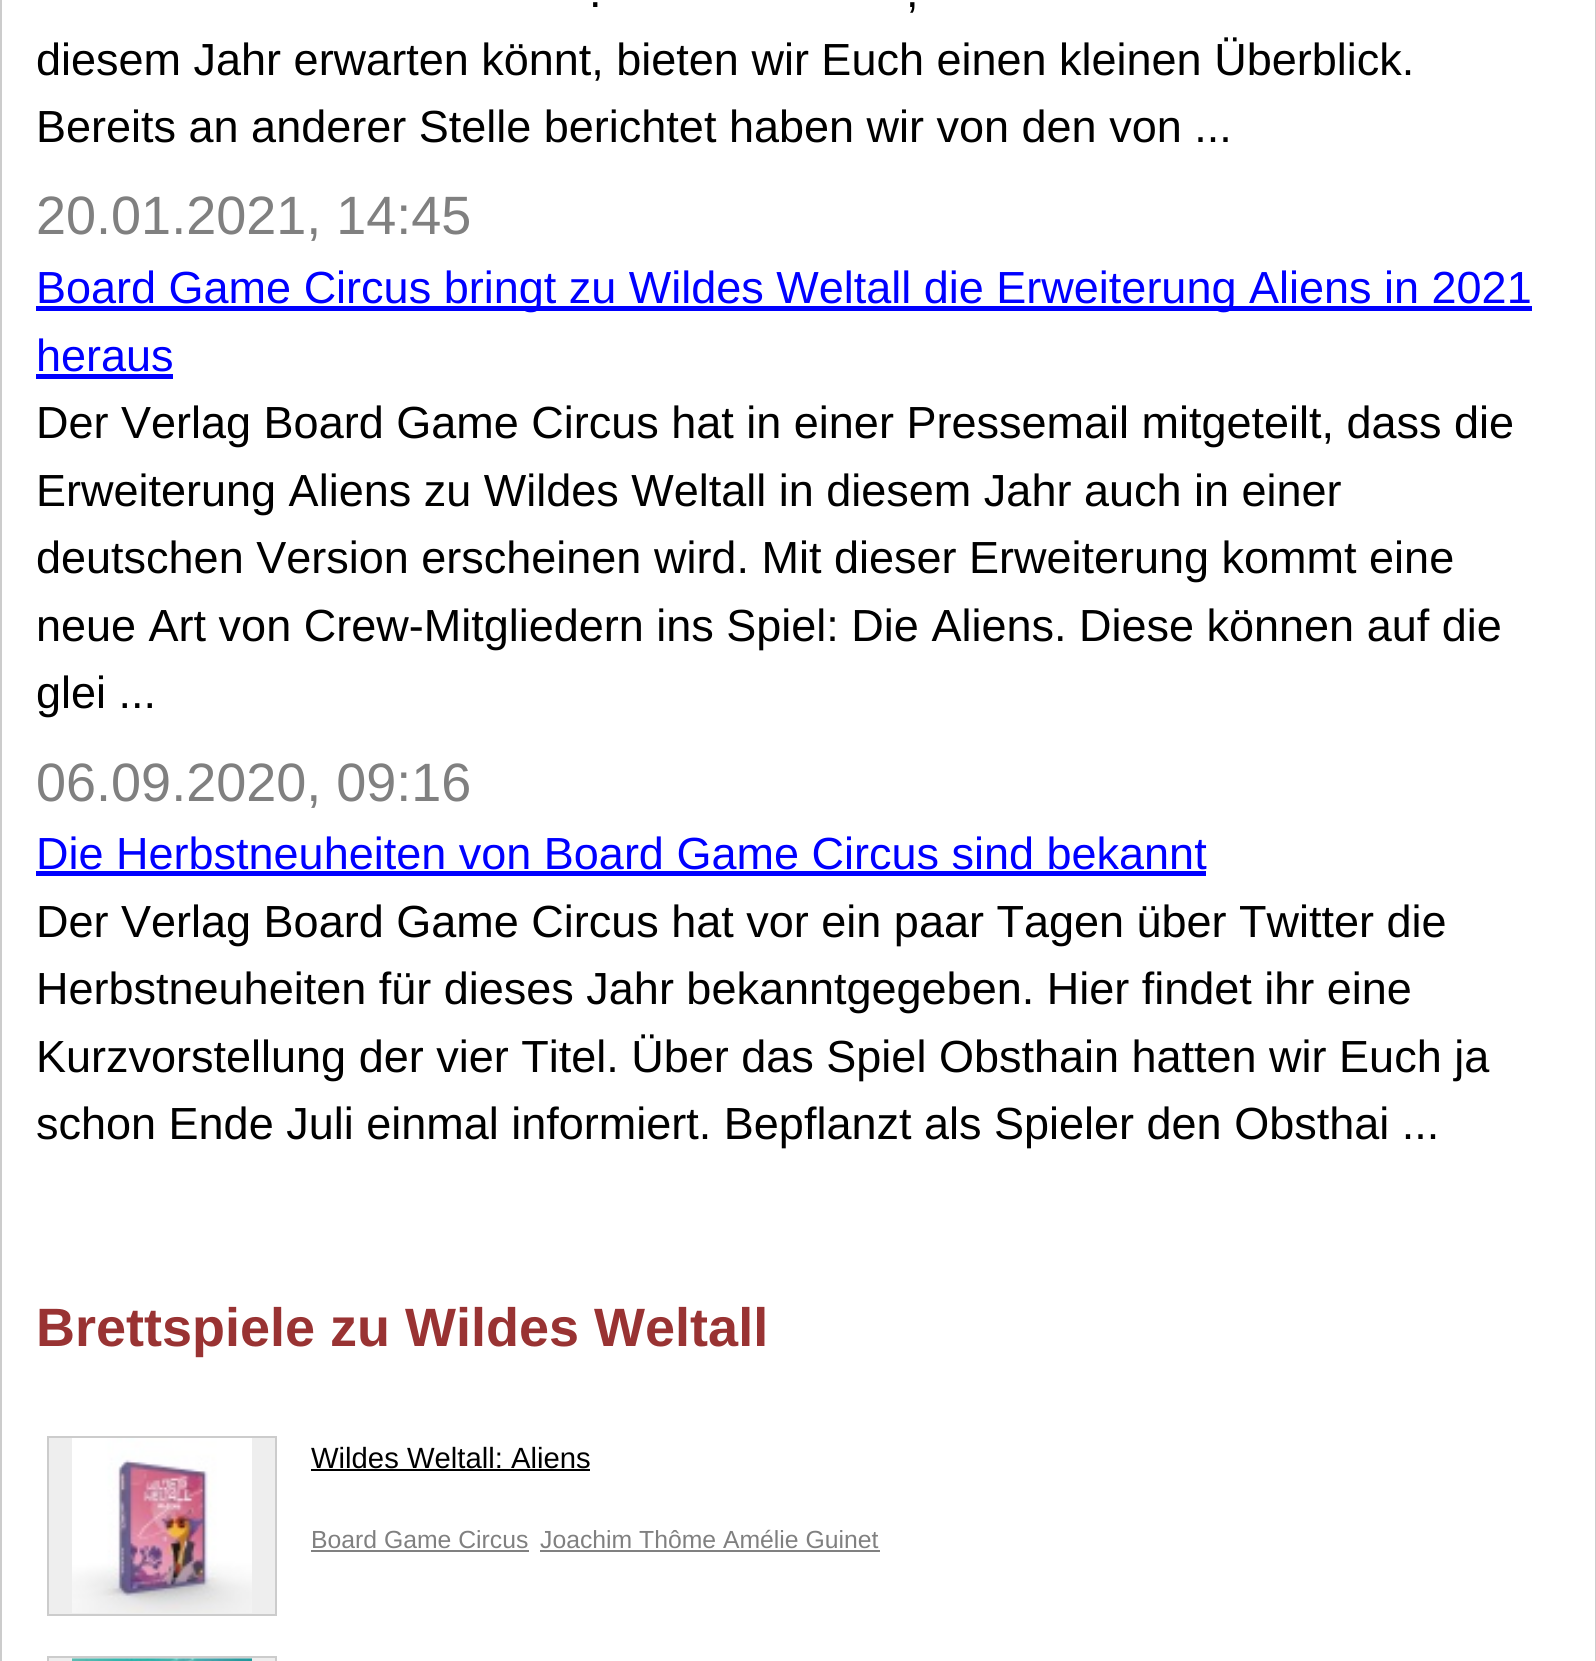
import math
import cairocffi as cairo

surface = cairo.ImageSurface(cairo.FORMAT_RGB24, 1596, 1661)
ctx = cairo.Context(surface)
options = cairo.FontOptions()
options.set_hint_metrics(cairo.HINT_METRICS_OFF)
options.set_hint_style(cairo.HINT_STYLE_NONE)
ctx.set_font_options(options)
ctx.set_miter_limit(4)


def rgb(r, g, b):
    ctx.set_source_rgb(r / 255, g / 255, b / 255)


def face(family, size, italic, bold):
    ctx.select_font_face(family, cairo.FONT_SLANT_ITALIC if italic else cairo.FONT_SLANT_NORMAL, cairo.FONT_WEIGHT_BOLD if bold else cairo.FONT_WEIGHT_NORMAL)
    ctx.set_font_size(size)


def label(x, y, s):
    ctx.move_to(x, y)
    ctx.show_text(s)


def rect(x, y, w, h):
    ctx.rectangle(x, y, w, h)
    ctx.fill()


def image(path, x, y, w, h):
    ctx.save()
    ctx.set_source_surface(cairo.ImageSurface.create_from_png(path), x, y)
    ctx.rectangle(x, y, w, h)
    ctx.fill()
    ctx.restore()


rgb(255, 255, 255)
ctx.paint()
rgb(204, 204, 204)
rect(1595, 0, 1, 1661)
rect(0, 0, 2, 1661)
face('Liberation Sans', 45, 0, 0)
rgb(0, 0, 0)
label(589, 7, '.')
label(906, 7, ',')
label(36, 75, 'diesem Jahr erwarten könnt, bieten wir Euch einen kleinen Überblick.')
label(36, 142, 'Bereits an anderer Stelle berichtet haben wir von den von ...')
face('Liberation Sans', 54, 0, 0)
rgb(128, 128, 128)
label(36, 234, '20.01.2021, 14:45')
rgb(0, 0, 255)
rect(36, 306, 1496, 5)
face('Liberation Sans', 45, 0, 0)
label(36, 303, 'Board Game Circus bringt zu Wildes Weltall die Erweiterung Aliens in 2021')
label(36, 371, 'heraus')
rect(36, 374, 137, 5)
rgb(0, 0, 0)
label(36, 438, 'Der Verlag Board Game Circus hat in einer Pressemail mitgeteilt, dass die')
label(36, 506, 'Erweiterung Aliens zu Wildes Weltall in diesem Jahr auch in einer')
label(36, 573, 'deutschen Version erscheinen wird. Mit dieser Erweiterung kommt eine')
label(36, 641, 'neue Art von Crew-Mitgliedern ins Spiel: Die Aliens. Diese können auf die')
label(36, 708, 'glei ...')
face('Liberation Sans', 54, 0, 0)
rgb(128, 128, 128)
label(36, 801, '06.09.2020, 09:16')
face('Liberation Sans', 45, 0, 0)
rgb(0, 0, 255)
label(36, 869, 'Die Herbstneuheiten von Board Game Circus sind bekannt')
rect(36, 871, 1170, 5)
rgb(0, 0, 0)
label(36, 937, 'Der Verlag Board Game Circus hat vor ein paar Tagen über Twitter die')
label(36, 1004, 'Herbstneuheiten für dieses Jahr bekanntgegeben. Hier findet ihr eine')
label(36, 1072, 'Kurzvorstellung der vier Titel. Über das Spiel Obsthain hatten wir Euch ja')
label(36, 1139, 'schon Ende Juli einmal informiert. Bepflanzt als Spieler den Obsthai ...')
face('Liberation Sans', 54, 0, 1)
rgb(153, 51, 51)
label(36, 1346, 'Brettspiele zu Wildes Weltall')
rgb(238, 238, 238)
ctx.rectangle(48, 1437, 228, 178)
ctx.fill_preserve()
rgb(204, 204, 204)
ctx.stroke()
image('image0.png', 72, 1438, 180, 175)
face('Liberation Sans', 29.25, 0, 0)
rgb(0, 0, 0)
label(311, 1468, 'Wildes Weltall: Aliens')
rect(311, 1469, 279, 2)
face('Liberation Sans', 24.75, 0, 0)
rgb(128, 128, 128)
label(311, 1548, 'Board Game Circus')
rect(311, 1550, 218, 2)
label(540, 1548, 'Joachim Thôme Amélie Guinet')
rect(540, 1550, 340, 2)
rgb(238, 238, 238)
ctx.rectangle(48, 1657, 228, 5)
ctx.fill_preserve()
rgb(204, 204, 204)
ctx.stroke()
image('image1.png', 72, 1658, 180, 3)
surface.write_to_png('render.png')
